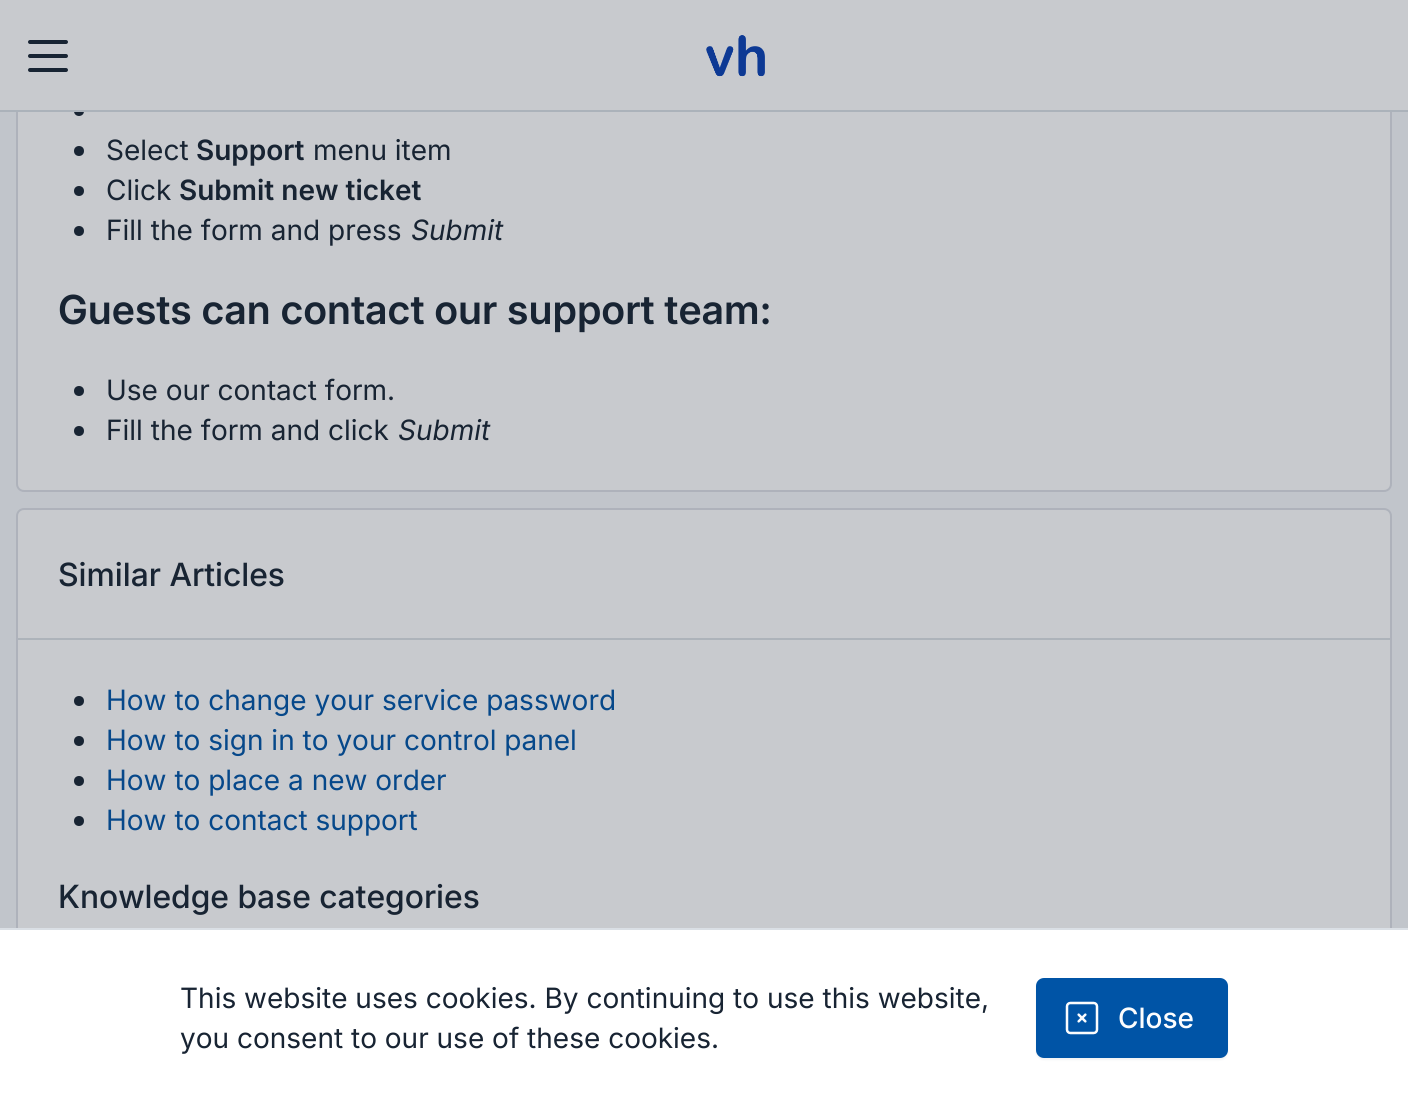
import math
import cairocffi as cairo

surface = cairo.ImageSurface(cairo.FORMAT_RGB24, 1408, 1106)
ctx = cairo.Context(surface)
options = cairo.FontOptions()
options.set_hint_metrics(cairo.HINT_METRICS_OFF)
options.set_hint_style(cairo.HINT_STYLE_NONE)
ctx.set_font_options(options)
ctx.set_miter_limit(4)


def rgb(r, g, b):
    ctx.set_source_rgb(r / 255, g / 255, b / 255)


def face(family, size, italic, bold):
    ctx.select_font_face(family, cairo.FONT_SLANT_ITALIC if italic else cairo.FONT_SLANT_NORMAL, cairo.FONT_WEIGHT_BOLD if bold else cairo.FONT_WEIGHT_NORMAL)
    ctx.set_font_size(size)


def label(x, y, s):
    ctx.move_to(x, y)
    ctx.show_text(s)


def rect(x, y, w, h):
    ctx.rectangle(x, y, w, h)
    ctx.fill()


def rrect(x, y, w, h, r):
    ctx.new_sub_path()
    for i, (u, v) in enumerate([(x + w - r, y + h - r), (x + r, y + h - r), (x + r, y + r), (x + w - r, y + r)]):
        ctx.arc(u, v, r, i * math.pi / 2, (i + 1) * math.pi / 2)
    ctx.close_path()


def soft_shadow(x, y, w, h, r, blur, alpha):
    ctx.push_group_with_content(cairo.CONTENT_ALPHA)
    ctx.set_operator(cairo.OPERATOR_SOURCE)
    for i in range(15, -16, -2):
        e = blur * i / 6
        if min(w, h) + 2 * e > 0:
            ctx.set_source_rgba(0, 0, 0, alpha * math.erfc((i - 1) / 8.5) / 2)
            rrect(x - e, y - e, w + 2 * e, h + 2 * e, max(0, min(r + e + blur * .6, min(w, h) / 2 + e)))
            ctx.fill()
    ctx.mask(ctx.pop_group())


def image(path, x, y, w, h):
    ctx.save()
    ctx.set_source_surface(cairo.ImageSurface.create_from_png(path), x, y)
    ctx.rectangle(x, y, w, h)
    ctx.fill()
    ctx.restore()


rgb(193, 197, 203)
ctx.paint()
rgb(200, 202, 206)
rrect(16, -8, 1376, 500, 8)
ctx.fill()
rrect(17, -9, 1374, 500, 7)
ctx.set_source_rgba(0.035, 0.129, 0.255, 0.14)
ctx.stroke()
rgb(24, 36, 51)
ctx.arc(79, 111, 5, 0, 2 * math.pi)
ctx.fill()
rgb(200, 202, 206)
rect(0, 0, 1408, 110)
rgb(171, 178, 186)
rect(0, 110, 1408, 2)
rgb(24, 36, 51)
rrect(28, 54, 40, 4, 2)
ctx.fill()
rrect(28, 40, 40, 4, 2)
ctx.fill()
rrect(28, 68, 40, 4, 2)
ctx.fill()
image('image0.png', 706, 35, 59, 42)
ctx.arc(79, 151, 5, 0, 2 * math.pi)
ctx.fill()
face('Inter', 28, 0, 0)
label(106, 160, 'Select')
face('Inter SemiBold', 28, 0, 0)
label(196, 160, 'Support')
face('Inter', 28, 0, 0)
label(313, 160, 'menu item')
ctx.new_path()
ctx.arc(79, 191, 5, 0, 2 * math.pi)
ctx.fill()
label(106, 200, 'Click')
face('Inter SemiBold', 28, 0, 0)
label(179, 200, 'Submit new ticket')
ctx.new_path()
ctx.arc(79, 231, 5, 0, 2 * math.pi)
ctx.fill()
face('Inter', 28, 0, 0)
label(106, 240, 'Fill the form and press')
face('Inter', 28, 1, 0)
label(411, 240, 'Submit')
face('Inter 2 SemiBold', 40, 0, 0)
label(58, 324, 'Guests can contact our support team:')
ctx.new_path()
ctx.arc(79, 391, 5, 0, 2 * math.pi)
ctx.fill()
face('Inter', 28, 0, 0)
label(106, 400, 'Use our contact form.')
ctx.new_path()
ctx.arc(79, 431, 5, 0, 2 * math.pi)
ctx.fill()
label(106, 440, 'Fill the form and click')
face('Inter', 28, 1, 0)
label(398, 440, 'Submit')
rgb(200, 202, 206)
rrect(16, 508, 1376, 526, 8)
ctx.fill()
rrect(17, 509, 1374, 524, 7)
ctx.set_source_rgba(0.035, 0.129, 0.255, 0.14)
ctx.stroke()
rgb(173, 179, 186)
rect(18, 638, 1372, 2)
face('Inter Medium', 32, 0, 0)
rgb(24, 36, 51)
label(58, 586, 'Similar Articles')
ctx.new_path()
ctx.arc(79, 701, 5, 0, 2 * math.pi)
ctx.fill()
face('Inter', 28, 0, 0)
rgb(6, 72, 138)
label(106, 710, 'How to change your service password')
rgb(24, 36, 51)
ctx.new_path()
ctx.arc(79, 741, 5, 0, 2 * math.pi)
ctx.fill()
rgb(6, 72, 138)
label(106, 750, 'How to sign in to your control panel')
rgb(24, 36, 51)
ctx.new_path()
ctx.arc(79, 781, 5, 0, 2 * math.pi)
ctx.fill()
rgb(6, 72, 138)
label(106, 790, 'How to place a new order')
rgb(24, 36, 51)
ctx.new_path()
ctx.arc(79, 821, 5, 0, 2 * math.pi)
ctx.fill()
rgb(6, 72, 138)
label(106, 830, 'How to contact support')
face('Inter Medium', 32, 0, 0)
rgb(24, 36, 51)
label(58, 908, 'Knowledge base categories')
rgb(255, 255, 255)
rect(0, 930, 1408, 176)
rgb(218, 223, 229)
rect(0, 928, 1408, 2)
face('Inter', 28, 0, 0)
rgb(24, 36, 51)
label(180, 1008, 'This website uses cookies. By continuing to use this website,')
label(180, 1048, 'you consent to our use of these cookies.')
rgb(24, 36, 51)
soft_shadow(1036, 980, 192, 80, 8, 1, 0.06)
rgb(0, 84, 166)
rrect(1036, 978, 192, 80, 8)
ctx.fill()
image('image1.png', 1065, 1001, 34, 34)
face('Inter 2 Medium', 28, 0, 0)
rgb(252, 253, 254)
label(1118, 1028, 'Close')
surface.write_to_png('render.png')
